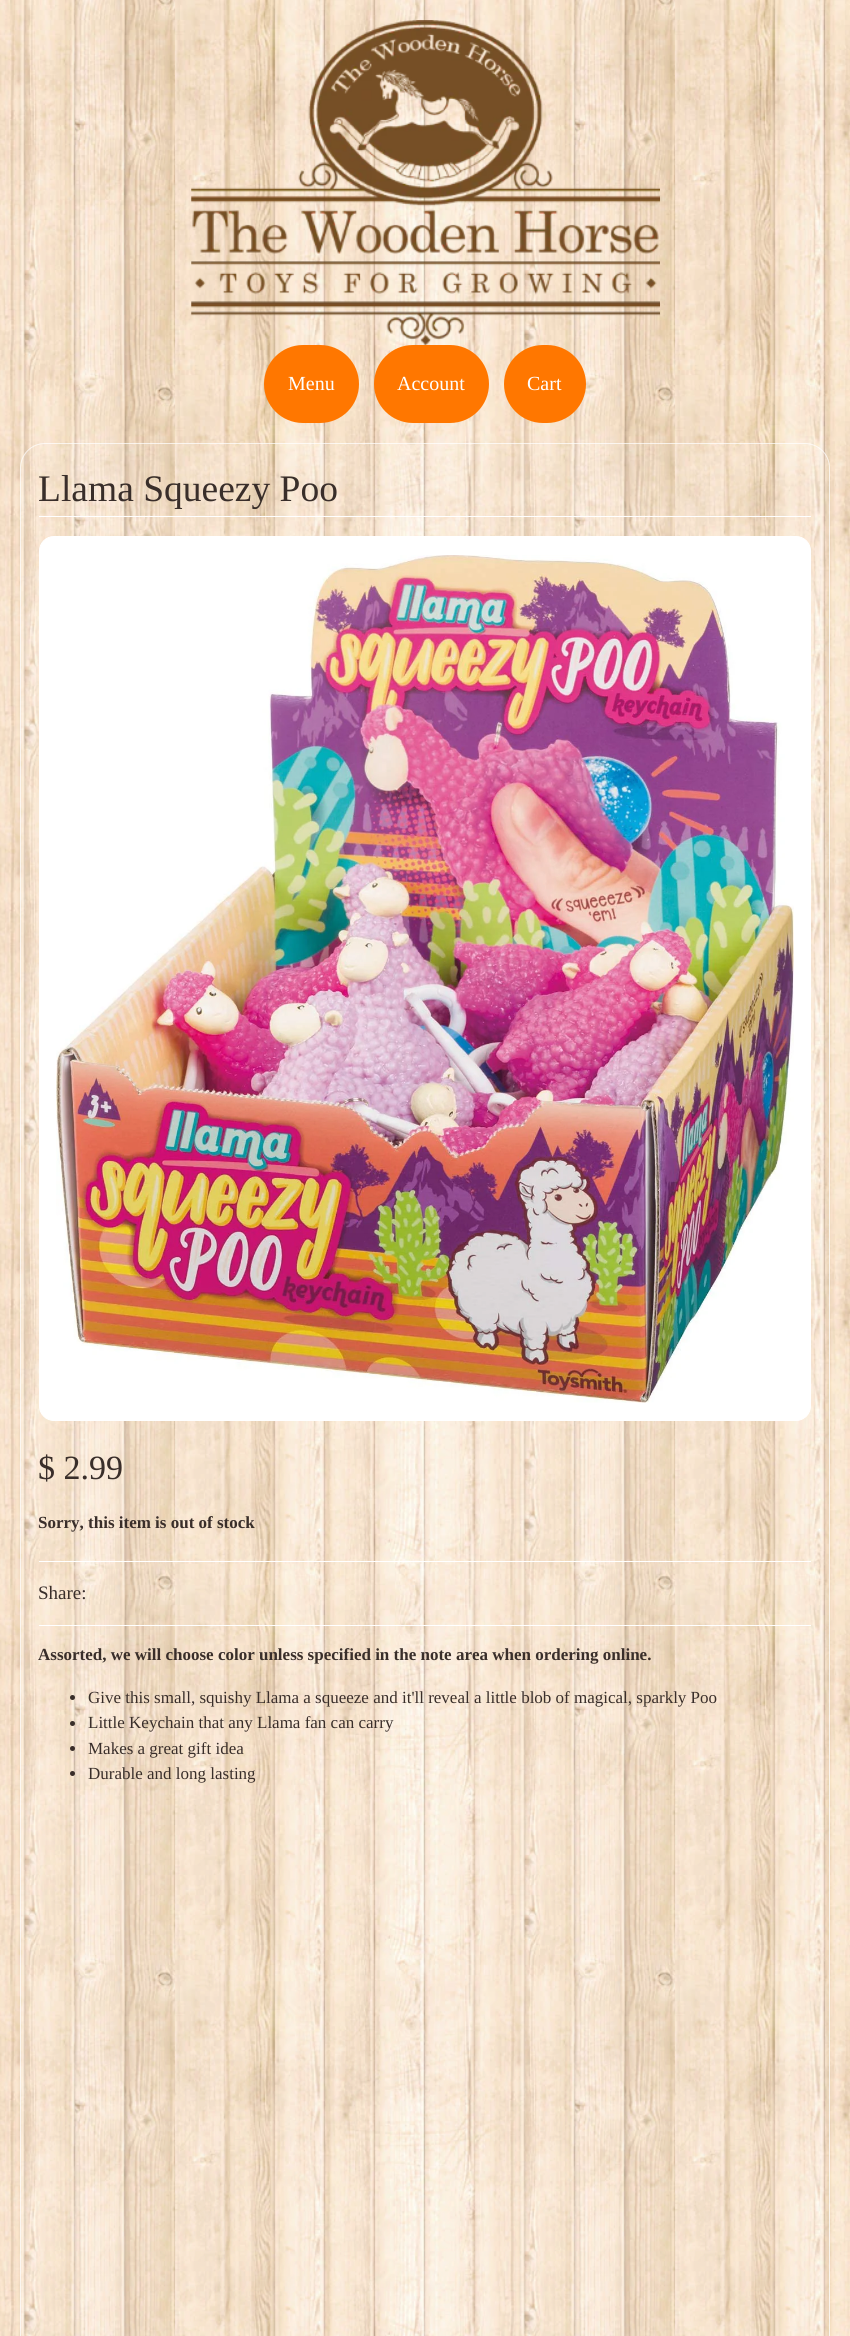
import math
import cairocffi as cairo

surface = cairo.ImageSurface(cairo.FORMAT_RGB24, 850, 2336)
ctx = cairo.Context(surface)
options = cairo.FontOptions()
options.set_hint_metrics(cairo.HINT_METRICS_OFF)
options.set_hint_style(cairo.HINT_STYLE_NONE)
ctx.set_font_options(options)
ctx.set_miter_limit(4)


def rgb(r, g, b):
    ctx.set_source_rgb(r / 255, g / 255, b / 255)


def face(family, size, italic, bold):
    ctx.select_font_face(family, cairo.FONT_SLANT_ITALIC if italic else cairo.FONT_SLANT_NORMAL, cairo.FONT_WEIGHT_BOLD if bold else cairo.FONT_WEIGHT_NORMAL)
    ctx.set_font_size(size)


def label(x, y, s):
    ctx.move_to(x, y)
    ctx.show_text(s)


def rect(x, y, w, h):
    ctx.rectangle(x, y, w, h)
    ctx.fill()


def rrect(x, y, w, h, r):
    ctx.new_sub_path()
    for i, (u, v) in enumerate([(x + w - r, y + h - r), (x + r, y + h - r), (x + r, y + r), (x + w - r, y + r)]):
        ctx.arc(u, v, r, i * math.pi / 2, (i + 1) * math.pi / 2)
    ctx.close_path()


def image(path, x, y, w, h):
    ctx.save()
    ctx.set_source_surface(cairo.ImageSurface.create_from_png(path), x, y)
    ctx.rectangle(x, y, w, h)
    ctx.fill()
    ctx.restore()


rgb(255, 255, 255)
ctx.paint()
image('image0.png', 0, 0, 850, 2336)
image('image1.png', 191, 20, 469, 325)
rgb(255, 119, 0)
rrect(266, 347, 91, 74, 37)
ctx.fill_preserve()
ctx.set_line_width(4)
ctx.stroke()
face('Liberation Serif', 20, 0, 0)
rgb(255, 255, 255)
label(288, 390, 'Menu')
rgb(255, 119, 0)
rrect(376, 347, 111, 74, 37)
ctx.fill_preserve()
ctx.stroke()
rgb(255, 255, 255)
label(397, 390, 'Account')
rgb(255, 119, 0)
rrect(506, 347, 78, 74, 37)
ctx.fill_preserve()
ctx.stroke()
rgb(255, 255, 255)
label(527, 390, 'Cart')
ctx.set_source_rgba(1, 1, 1, 0.1)
rrect(20, 443, 810, 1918, 25)
ctx.fill()
rrect(20.5, 443.5, 809, 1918, 24.5)
ctx.set_source_rgba(1, 1, 1, 0.7)
ctx.set_line_width(1)
ctx.stroke()
rgb(255, 255, 255)
rect(39, 516, 772, 1)
face('Liberation Serif', 37.5, 0, 0)
rgb(57, 46, 42)
label(38, 501, 'Llama Squeezy Poo')
rgb(255, 255, 255)
rrect(39.5, 536.5, 771, 884, 14.5)
ctx.fill_preserve()
ctx.stroke()
image('image2.png', 56, 555, 738, 848)
face('Liberation Serif', 34, 0, 0)
rgb(57, 46, 42)
label(38, 1479, '$ 2.99')
face('Liberation Serif', 17, 0, 1)
label(38, 1528, 'Sorry, this item is out of stock')
rgb(255, 255, 255)
rect(39, 1561, 772, 1)
face('Liberation Serif', 19, 0, 0)
rgb(57, 46, 42)
label(38, 1599, 'Share:')
rgb(255, 255, 255)
rect(39, 1625, 772, 1)
face('Liberation Serif', 17, 0, 1)
rgb(57, 46, 42)
label(38, 1660, 'Assorted, we will choose color unless specified in the note area when ordering online.')
ctx.new_path()
ctx.arc(72.5, 1697.5, 2.5, 0, 2 * math.pi)
ctx.fill()
face('Liberation Serif', 17, 0, 0)
label(88, 1703, 'Give this small, squishy Llama a squeeze and it\'ll reveal a little blob of magical, sparkly Poo')
ctx.new_path()
ctx.arc(72.5, 1723.5, 2.5, 0, 2 * math.pi)
ctx.fill()
label(88, 1728, 'Little Keychain that any Llama fan can carry')
ctx.new_path()
ctx.arc(72.5, 1748.5, 2.5, 0, 2 * math.pi)
ctx.fill()
label(88, 1754, 'Makes a great gift idea')
ctx.new_path()
ctx.arc(72.5, 1773.5, 2.5, 0, 2 * math.pi)
ctx.fill()
label(88, 1779, 'Durable and long lasting')
surface.write_to_png('render.png')
